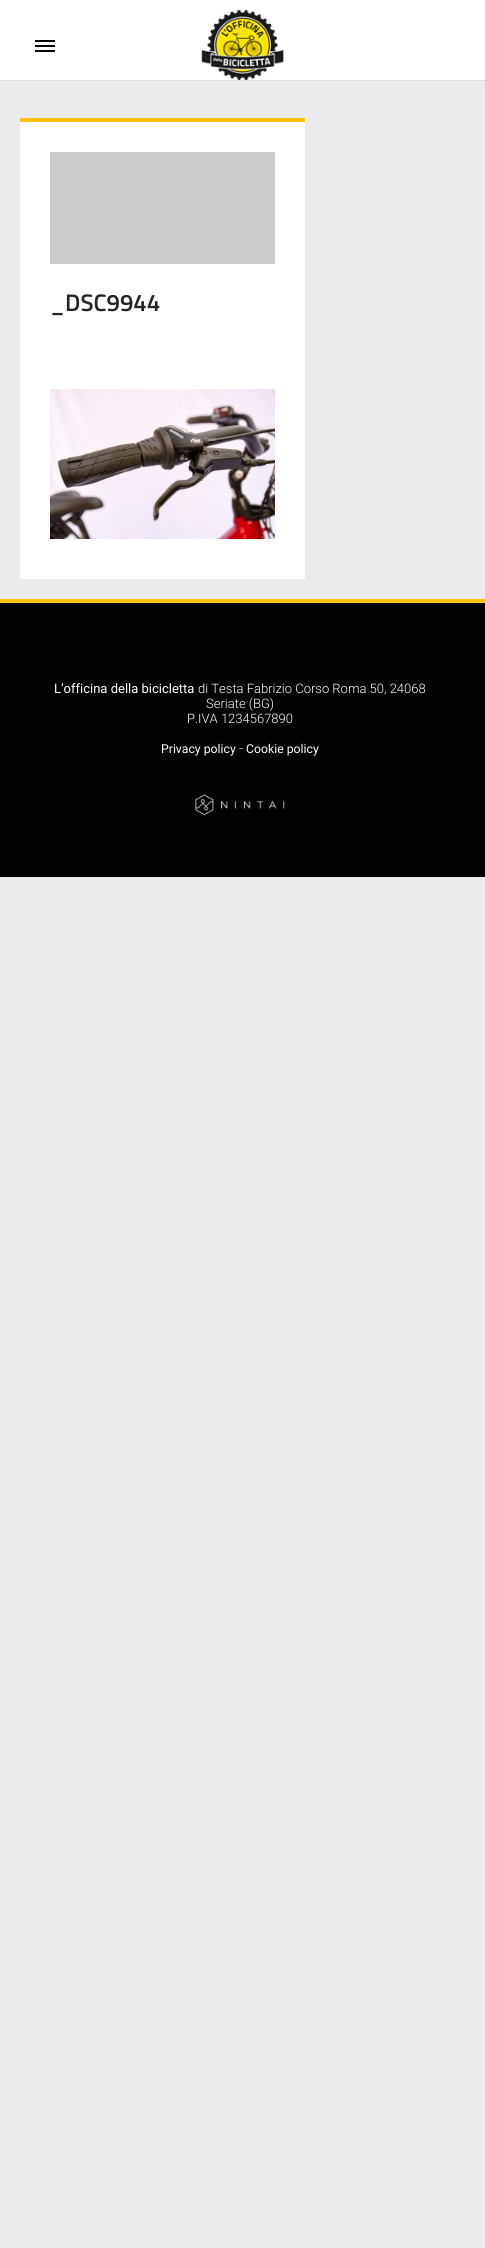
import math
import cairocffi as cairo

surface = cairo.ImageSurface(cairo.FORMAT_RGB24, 485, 2248)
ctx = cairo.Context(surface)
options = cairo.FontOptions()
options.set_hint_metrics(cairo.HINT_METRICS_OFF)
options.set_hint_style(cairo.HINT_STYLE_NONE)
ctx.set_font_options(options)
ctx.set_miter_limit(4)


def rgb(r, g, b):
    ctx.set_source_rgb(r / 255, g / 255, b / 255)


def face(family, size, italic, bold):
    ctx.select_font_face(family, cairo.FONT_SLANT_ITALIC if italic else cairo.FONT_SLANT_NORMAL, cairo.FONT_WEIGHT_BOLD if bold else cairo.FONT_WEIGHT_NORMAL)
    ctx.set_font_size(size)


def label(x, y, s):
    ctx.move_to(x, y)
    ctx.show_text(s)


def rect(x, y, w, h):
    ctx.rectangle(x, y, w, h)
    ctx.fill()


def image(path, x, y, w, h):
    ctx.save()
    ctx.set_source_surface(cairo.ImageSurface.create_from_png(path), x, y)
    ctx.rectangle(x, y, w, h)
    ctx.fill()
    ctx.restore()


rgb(235, 235, 235)
ctx.paint()
rgb(255, 255, 255)
rect(0, 0, 485, 80)
rgb(213, 227, 232)
rect(0, 80, 485, 1)
rgb(0, 0, 0)
rect(35, 40, 20, 2)
rect(35, 45, 20, 2)
rect(35, 50, 20, 2)
image('image0.png', 201, 10, 83, 70)
rgb(255, 255, 255)
rect(20, 122, 285, 457)
rgb(255, 194, 8)
rect(20, 118, 285, 4)
rgb(204, 204, 204)
rect(50, 152, 225, 112)
face('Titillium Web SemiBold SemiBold', 24, 0, 0)
rgb(37, 37, 37)
label(50, 311, '_DSC9944')
image('image1.png', 50, 389, 225, 150)
rgb(2, 2, 2)
rect(0, 603, 485, 274)
rgb(255, 194, 8)
rect(0, 599, 485, 4)
face('Roboto', 13, 0, 0)
rgb(255, 255, 255)
label(54, 693, 'L’officina della bicicletta')
face('Roboto Light', 13, 0, 0)
label(198, 693, 'di Testa Fabrizio Corso Roma 50, 24068')
label(206, 708, 'Seriate (BG)')
label(187, 723, 'P.IVA 1234567890')
face('Roboto', 12.25, 0, 0)
label(161, 753, 'Privacy policy')
face('Roboto Light', 14, 0, 0)
label(239, 753, '-')
face('Roboto', 12.25, 0, 0)
label(246, 753, 'Cookie policy')
image('image2.png', 195, 794, 90, 22)
surface.write_to_png('render.png')
